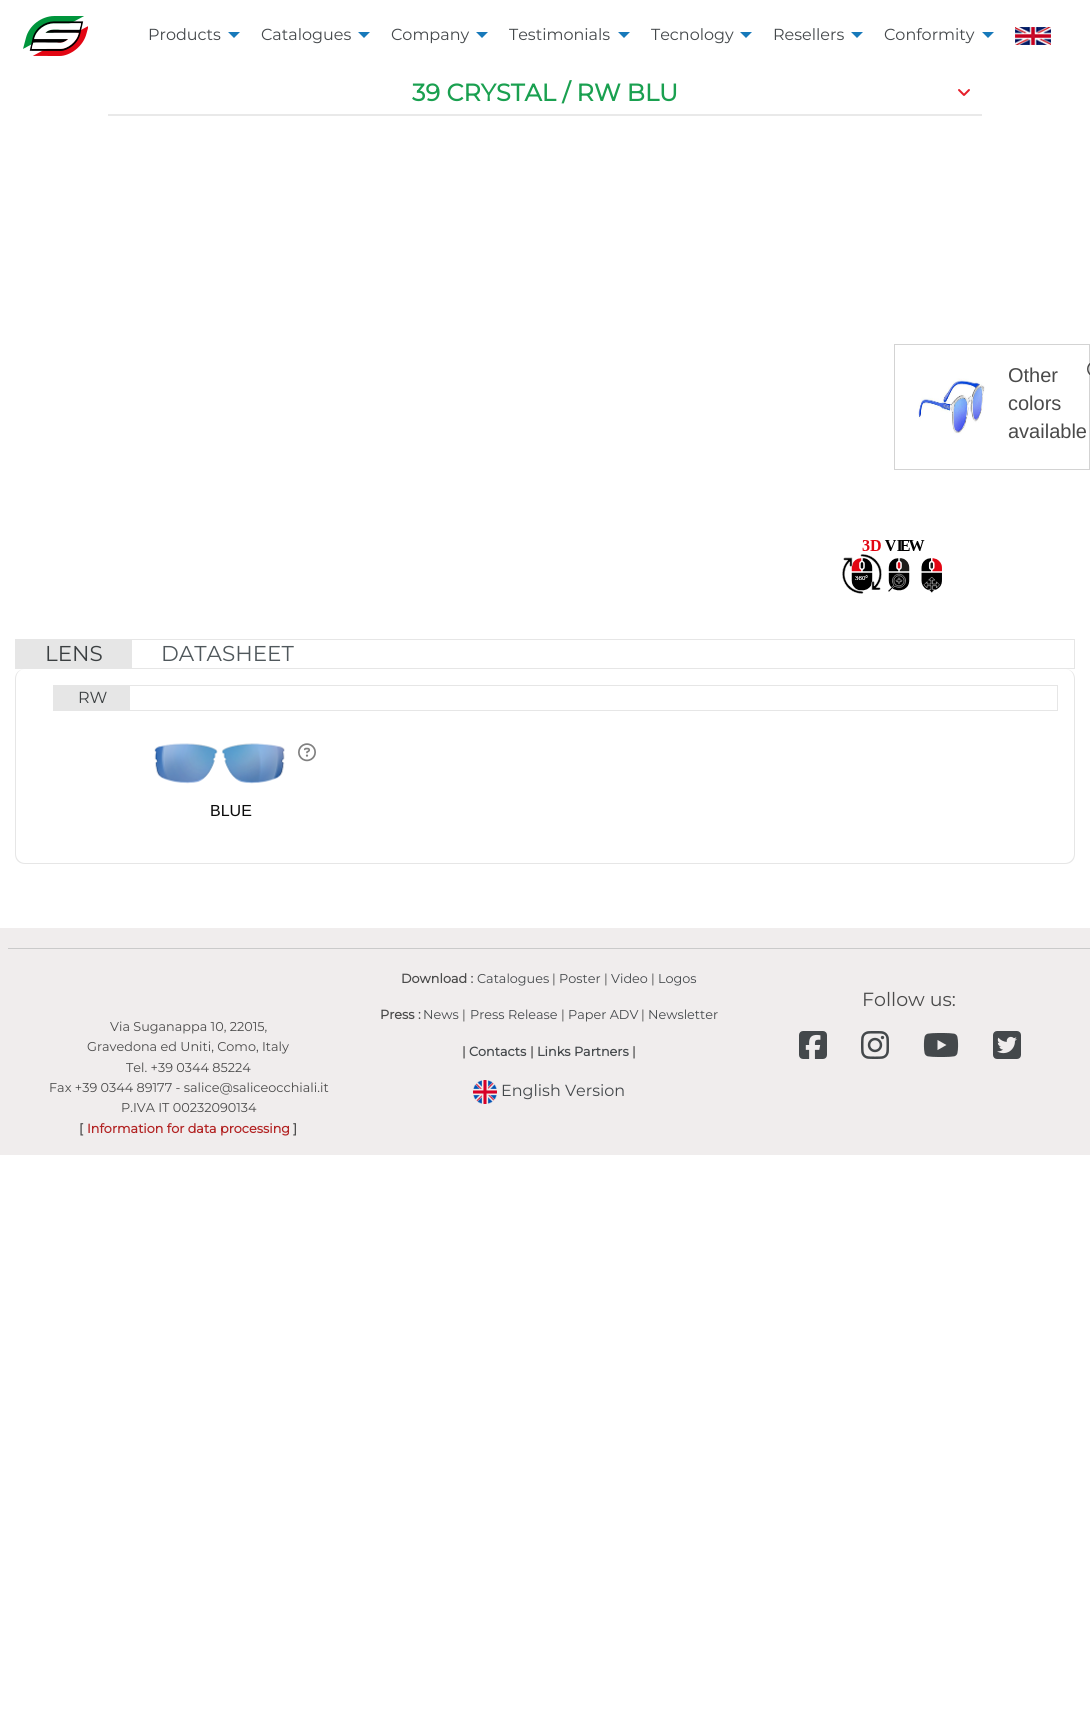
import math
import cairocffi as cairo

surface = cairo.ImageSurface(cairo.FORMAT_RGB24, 1090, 1722)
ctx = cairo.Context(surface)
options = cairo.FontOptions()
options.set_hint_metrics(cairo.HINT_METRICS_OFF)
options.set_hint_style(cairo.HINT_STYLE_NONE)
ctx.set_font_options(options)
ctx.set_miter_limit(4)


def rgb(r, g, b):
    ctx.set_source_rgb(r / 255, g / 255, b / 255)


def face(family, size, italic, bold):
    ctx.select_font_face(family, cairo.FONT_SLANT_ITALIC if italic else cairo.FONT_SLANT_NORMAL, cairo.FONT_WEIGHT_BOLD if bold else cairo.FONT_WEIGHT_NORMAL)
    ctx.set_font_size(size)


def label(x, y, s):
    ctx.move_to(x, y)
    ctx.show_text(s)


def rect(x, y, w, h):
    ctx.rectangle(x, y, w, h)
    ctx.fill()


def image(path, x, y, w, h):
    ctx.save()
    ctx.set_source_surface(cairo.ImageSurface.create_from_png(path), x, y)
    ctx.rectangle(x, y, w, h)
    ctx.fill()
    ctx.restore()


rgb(255, 255, 255)
ctx.paint()
image('image0.png', 23, 16, 65, 40)
face('Montserrat Thin', 16, 0, 0)
rgb(68, 72, 75)
label(148, 40, 'Products')
rgb(23, 121, 186)
ctx.new_path()
ctx.move_to(228, 32)
ctx.line_to(240, 32)
ctx.line_to(234, 38)
ctx.close_path()
ctx.fill()
rgb(68, 72, 75)
label(261, 40, 'Catalogues')
rgb(23, 121, 186)
ctx.new_path()
ctx.move_to(358, 32)
ctx.line_to(370, 32)
ctx.line_to(364, 38)
ctx.close_path()
ctx.fill()
rgb(68, 72, 75)
label(391, 40, 'Company')
rgb(23, 121, 186)
ctx.new_path()
ctx.move_to(476, 32)
ctx.line_to(488, 32)
ctx.line_to(482, 38)
ctx.close_path()
ctx.fill()
rgb(68, 72, 75)
label(509, 40, 'Testimonials')
rgb(23, 121, 186)
ctx.new_path()
ctx.move_to(618, 32)
ctx.line_to(630, 32)
ctx.line_to(624, 38)
ctx.close_path()
ctx.fill()
rgb(68, 72, 75)
label(651, 40, 'Tecnology')
rgb(23, 121, 186)
ctx.new_path()
ctx.move_to(740, 32)
ctx.line_to(752, 32)
ctx.line_to(746, 38)
ctx.close_path()
ctx.fill()
rgb(68, 72, 75)
label(773, 40, 'Resellers')
rgb(23, 121, 186)
ctx.new_path()
ctx.move_to(851, 32)
ctx.line_to(863, 32)
ctx.line_to(857, 38)
ctx.close_path()
ctx.fill()
rgb(68, 72, 75)
label(884, 40, 'Conformity')
rgb(23, 121, 186)
ctx.new_path()
ctx.move_to(982, 32)
ctx.line_to(994, 32)
ctx.line_to(988, 38)
ctx.close_path()
ctx.fill()
image('image1.png', 1015, 27, 36, 18)
rgb(233, 233, 233)
rect(108, 114, 874, 2)
face('Montserrat', 24, 0, 1)
rgb(26, 160, 80)
label(412, 101, '39 CRYSTAL / RW BLU')
image('image2.png', 958, 89, 12, 7)
image('image3.png', 842, 540, 100, 54)
ctx.rectangle(894.5, 344.5, 195, 125)
rgb(211, 211, 211)
ctx.set_line_width(1)
ctx.stroke()
image('image4.png', 917, 378, 68, 56)
face('Liberation Sans', 20, 0, 0)
rgb(74, 74, 74)
label(1008, 382, 'Other')
label(1008, 410, 'colors')
label(1008, 438, 'available')
image('image5.png', 1087, 363, 3, 12)
ctx.rectangle(15.5, 639.5, 1059, 29)
rgb(230, 230, 230)
ctx.stroke()
rect(16, 640, 116, 28)
face('Montserrat Thin', 21.5, 0, 0)
rgb(59, 63, 65)
label(45, 661, 'LENS')
rgb(80, 88, 92)
label(161, 661, 'DATASHEET')
rgb(230, 230, 230)
ctx.set_fill_rule(cairo.FILL_RULE_EVEN_ODD)
ctx.new_path()
ctx.move_to(25, 669)
ctx.line_to(1065, 669)
ctx.curve_to(1071, 669, 1075, 673, 1075, 679)
ctx.line_to(1075, 854)
ctx.curve_to(1075, 860, 1071, 864, 1065, 864)
ctx.line_to(25, 864)
ctx.curve_to(19, 864, 15, 860, 15, 854)
ctx.line_to(15, 679)
ctx.curve_to(15, 673, 19, 669, 25, 669)
ctx.close_path()
ctx.move_to(25, 669)
ctx.line_to(1065, 669)
ctx.curve_to(1070, 669, 1074, 673, 1074, 679)
ctx.line_to(1074, 854)
ctx.curve_to(1074, 859, 1070, 863, 1065, 863)
ctx.line_to(25, 863)
ctx.curve_to(20, 863, 16, 859, 16, 854)
ctx.line_to(16, 679)
ctx.curve_to(16, 673, 20, 669, 25, 669)
ctx.close_path()
ctx.fill()
ctx.rectangle(53.5, 685.5, 1004, 25)
ctx.stroke()
rect(54, 686, 76, 24)
face('Montserrat Thin', 16, 0, 0)
rgb(59, 63, 65)
label(78, 703, 'RW')
image('image6.png', 154, 743, 131, 41)
image('image7.png', 298, 743, 18, 19)
face('Liberation Sans', 16, 0, 0)
rgb(10, 10, 10)
label(210, 816, 'BLUE')
rgb(240, 237, 237)
rect(0, 928, 1090, 227)
face('Montserrat', 12.8, 0, 1)
rgb(74, 74, 74)
label(401, 983, 'Download :')
face('Montserrat Thin', 12.8, 0, 0)
rgb(68, 72, 75)
label(477, 983, 'Catalogues')
rgb(74, 74, 74)
label(552, 983, '|')
rgb(68, 72, 75)
label(559, 983, 'Poster')
rgb(74, 74, 74)
label(604, 983, '|')
rgb(68, 72, 75)
label(611, 983, 'Video')
rgb(74, 74, 74)
label(651, 983, '|')
rgb(68, 72, 75)
label(658, 983, 'Logos')
face('Montserrat', 12.8, 0, 1)
rgb(74, 74, 74)
label(380, 1019, 'Press :')
face('Montserrat Thin', 12.8, 0, 0)
rgb(68, 72, 75)
label(423, 1019, 'News')
rgb(74, 74, 74)
label(462, 1019, '|')
rgb(68, 72, 75)
label(470, 1019, 'Press Release')
rgb(74, 74, 74)
label(561, 1019, '|')
rgb(68, 72, 75)
label(568, 1019, 'Paper ADV')
rgb(74, 74, 74)
label(641, 1019, '|')
rgb(68, 72, 75)
label(648, 1019, 'Newsletter')
face('Montserrat', 12.8, 0, 1)
rgb(74, 74, 74)
label(462, 1056, '|')
rgb(68, 72, 75)
label(469, 1056, 'Contacts')
rgb(74, 74, 74)
label(530, 1056, '|')
rgb(68, 72, 75)
label(537, 1056, 'Links Partners')
rgb(74, 74, 74)
label(632, 1056, '|')
image('image8.png', 473, 1080, 24, 24)
face('Montserrat Thin', 16, 0, 0)
rgb(68, 72, 75)
label(501, 1096, 'English Version')
face('Montserrat Thin', 19, 0, 0)
rgb(74, 74, 74)
label(862, 1006, 'Follow us:')
image('image9.png', 799, 1031, 28, 28)
image('image10.png', 861, 1031, 28, 28)
image('image11.png', 923, 1033, 36, 24)
image('image12.png', 993, 1031, 28, 28)
rgb(202, 202, 202)
rect(8, 948, 1082, 1)
face('Montserrat Thin', 12.8, 0, 0)
rgb(74, 74, 74)
label(110, 1031, 'Via Suganappa 10, 22015,')
label(87, 1051, 'Gravedona ed Uniti, Como, Italy')
label(126, 1072, 'Tel. +39 0344 85224')
label(49, 1092, 'Fax +39 0344 89177 - salice@saliceocchiali.it')
label(121, 1112, 'P.IVA IT 00232090134')
face('Montserrat', 12.8, 0, 1)
label(79, 1133, '[')
rgb(178, 34, 34)
label(87, 1133, 'Information for data processing')
rgb(74, 74, 74)
label(293, 1133, ']')
surface.write_to_png('render.png')
